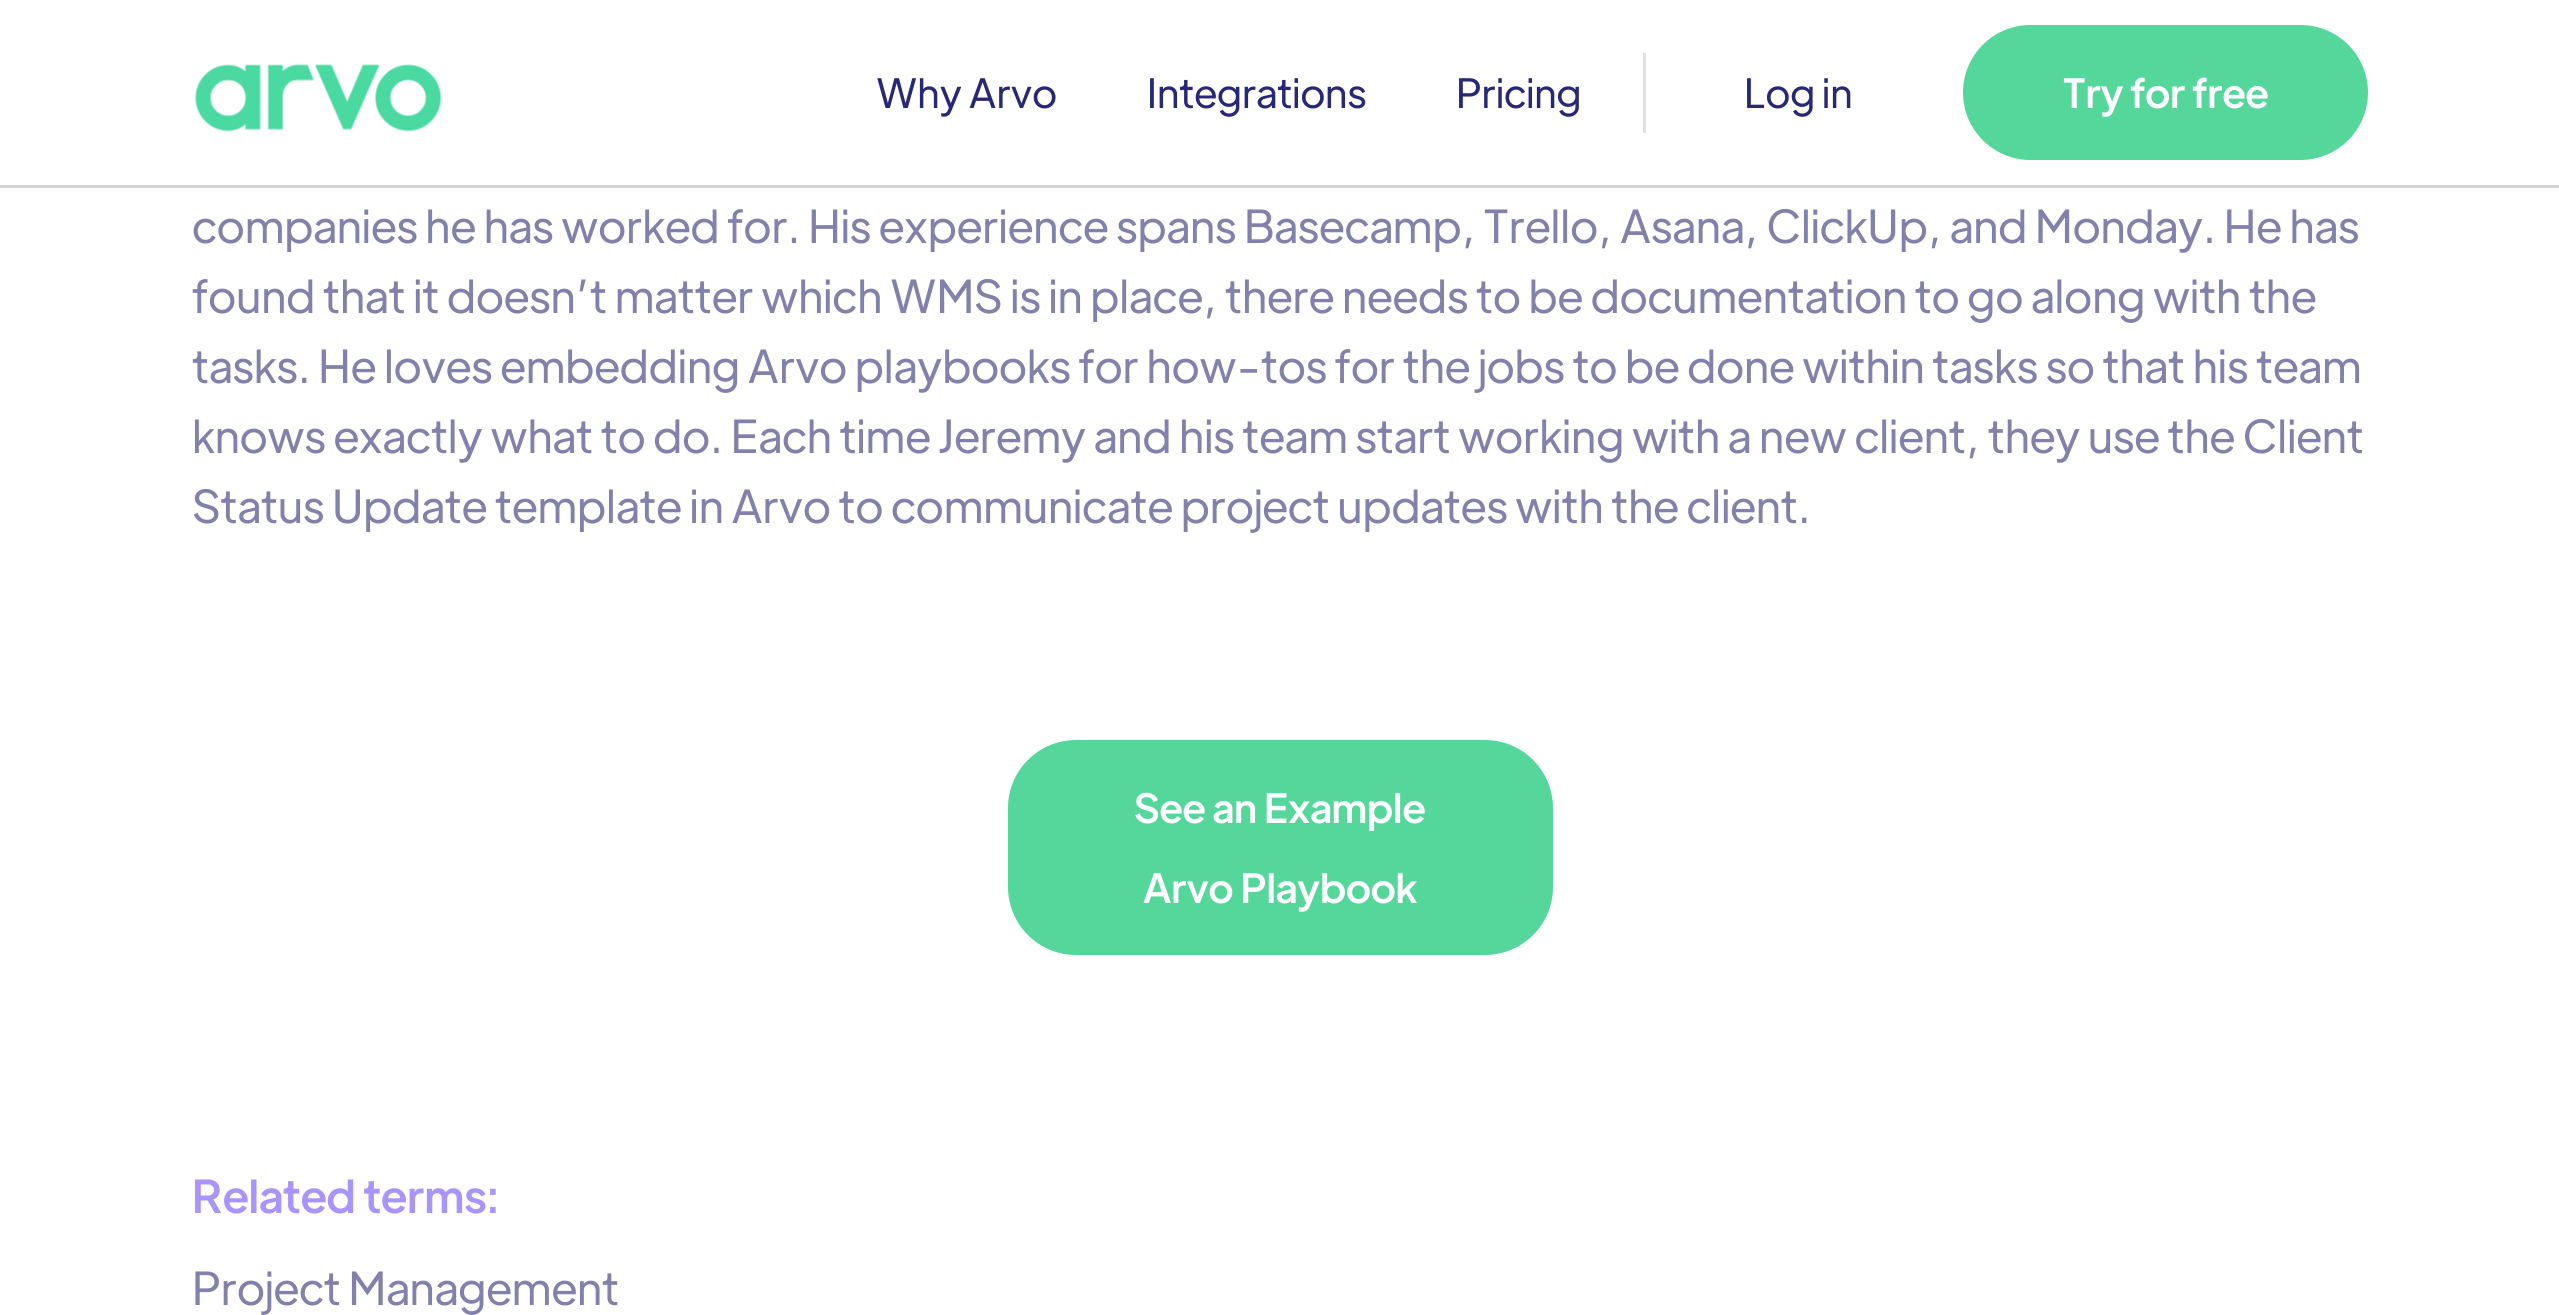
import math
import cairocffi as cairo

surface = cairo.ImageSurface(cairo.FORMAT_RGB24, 2559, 1315)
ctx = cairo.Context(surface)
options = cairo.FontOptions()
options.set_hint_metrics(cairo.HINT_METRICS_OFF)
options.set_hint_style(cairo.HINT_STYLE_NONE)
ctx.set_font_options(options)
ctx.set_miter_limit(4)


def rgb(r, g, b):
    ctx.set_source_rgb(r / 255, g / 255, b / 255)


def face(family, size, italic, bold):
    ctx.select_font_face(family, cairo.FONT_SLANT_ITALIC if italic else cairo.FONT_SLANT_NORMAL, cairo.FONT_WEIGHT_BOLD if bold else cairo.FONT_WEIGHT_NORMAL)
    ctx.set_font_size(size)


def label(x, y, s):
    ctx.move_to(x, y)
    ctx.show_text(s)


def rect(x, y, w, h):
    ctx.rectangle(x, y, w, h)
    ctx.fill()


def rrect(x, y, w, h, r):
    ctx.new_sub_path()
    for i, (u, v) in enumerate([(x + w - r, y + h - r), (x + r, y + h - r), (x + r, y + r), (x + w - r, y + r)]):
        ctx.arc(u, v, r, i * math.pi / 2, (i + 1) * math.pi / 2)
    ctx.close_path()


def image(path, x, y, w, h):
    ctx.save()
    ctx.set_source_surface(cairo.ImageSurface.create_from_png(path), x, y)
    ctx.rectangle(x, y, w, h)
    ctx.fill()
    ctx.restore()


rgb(255, 255, 255)
ctx.paint()
rgb(212, 212, 212)
rect(0, 185, 2559, 3)
image('image0.png', 195, 64, 247, 68)
face('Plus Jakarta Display', 40, 0, 0)
rgb(40, 40, 118)
label(876, 108, 'Why Arvo')
label(1147, 108, 'Integrations')
label(1456, 108, 'Pricing')
rgb(224, 224, 224)
rect(1643, 53, 3, 80)
rgb(40, 40, 118)
label(1744, 108, 'Log in')
rgb(85, 215, 156)
rrect(1963, 25, 405, 135, 67.5)
ctx.fill()
face('Plus Jakarta Display Medium', 40, 0, 0)
rgb(255, 255, 255)
label(2063, 108, 'Try for free')
face('Plus Jakarta Display', 45, 0, 0)
rgb(129, 129, 172)
label(192, 243, 'companies he has worked for. His experience spans Basecamp, Trello, Asana, ClickUp, and Monday. He has')
label(192, 313, 'found that it doesn’t matter which WMS is in place, there needs to be documentation to go along with the')
label(192, 383, 'tasks. He loves embedding Arvo playbooks for how-tos for the jobs to be done within tasks so that his team')
label(192, 453, 'knows exactly what to do. Each time Jeremy and his team start working with a new client, they use the Client')
label(192, 523, 'Status Update template in Arvo to communicate project updates with the client.')
rgb(85, 215, 156)
rrect(1008, 740, 545, 215, 68)
ctx.fill()
face('Plus Jakarta Display Medium', 40, 0, 0)
rgb(255, 255, 255)
label(1134, 823, 'See an Example')
label(1143, 903, 'Arvo Playbook')
face('Plus Jakarta Display Medium', 45, 0, 0)
rgb(169, 148, 250)
label(192, 1213, 'Related terms:')
face('Plus Jakarta Display', 45, 0, 0)
rgb(129, 129, 172)
label(192, 1305, 'Project Management')
surface.write_to_png('render.png')
